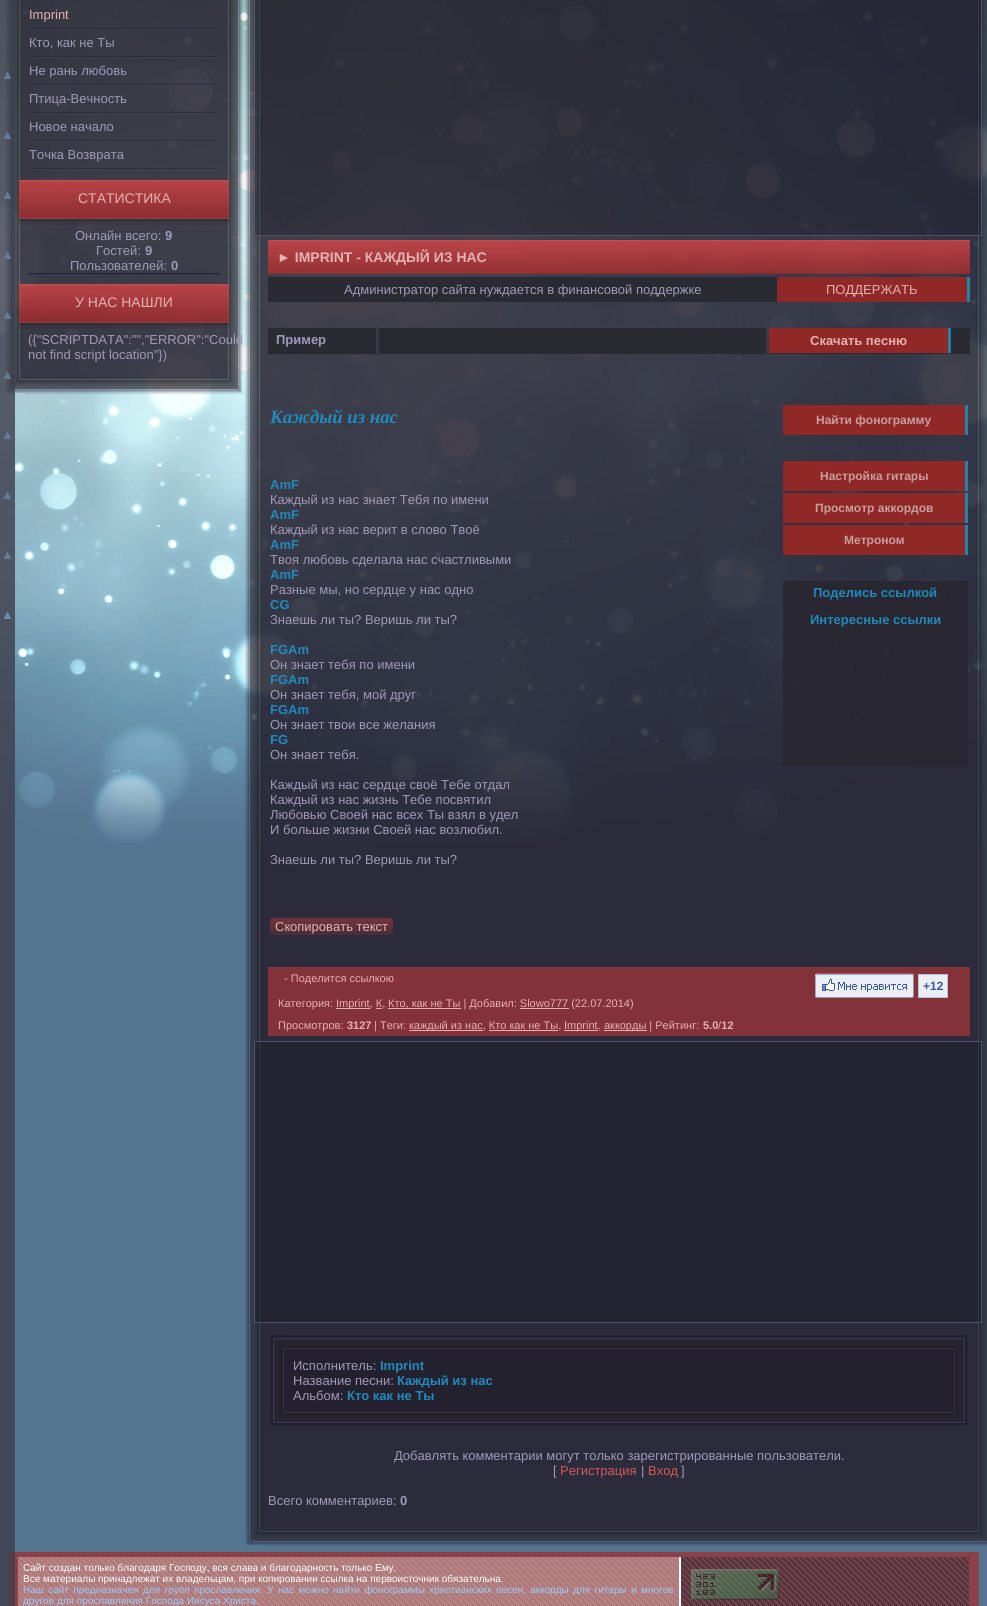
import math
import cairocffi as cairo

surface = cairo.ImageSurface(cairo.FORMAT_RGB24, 987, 1606)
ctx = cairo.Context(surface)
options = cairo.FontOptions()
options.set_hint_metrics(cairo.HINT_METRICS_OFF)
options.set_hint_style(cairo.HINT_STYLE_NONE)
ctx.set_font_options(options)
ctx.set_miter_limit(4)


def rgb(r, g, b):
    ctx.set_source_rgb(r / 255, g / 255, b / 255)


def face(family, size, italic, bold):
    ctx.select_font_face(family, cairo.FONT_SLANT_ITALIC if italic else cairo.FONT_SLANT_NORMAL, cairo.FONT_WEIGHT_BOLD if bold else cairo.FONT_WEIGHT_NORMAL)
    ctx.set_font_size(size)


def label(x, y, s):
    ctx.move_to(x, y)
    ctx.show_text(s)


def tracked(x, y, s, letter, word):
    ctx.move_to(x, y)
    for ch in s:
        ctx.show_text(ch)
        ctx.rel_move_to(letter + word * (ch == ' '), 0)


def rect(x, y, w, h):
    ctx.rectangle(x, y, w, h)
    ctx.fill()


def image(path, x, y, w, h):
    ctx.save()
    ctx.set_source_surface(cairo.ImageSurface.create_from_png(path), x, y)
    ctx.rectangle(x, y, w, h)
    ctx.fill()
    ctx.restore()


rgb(86, 117, 145)
ctx.paint()
image('image0.png', 0, 0, 987, 843)
image('image1.png', 4, 371, 240, 24)
image('image2.png', 4, 0, 240, 180)
image('image9.png', 4, 180, 240, 104)
image('image11.png', 4, 284, 240, 87)
rgb(140, 65, 74)
rect(8, 1552, 971, 54)
ctx.set_source_rgba(0.243, 0.243, 0.298, 0.8)
rect(0, 0, 15, 1606)
face('Liberation Sans', 13, 0, 1)
rgb(99, 123, 149)
label(1, 79, '▲')
label(1, 139, '▲')
label(1, 199, '▲')
label(1, 259, '▲')
label(1, 319, '▲')
label(1, 379, '▲')
label(1, 439, '▲')
label(1, 499, '▲')
label(1, 559, '▲')
rgb(110, 141, 169)
label(1, 619, '▲')
image('image3.png', 29, 28, 190, 2)
face('Liberation Sans', 13, 0, 0)
rgb(230, 177, 177)
label(29, 19, 'Imprint')
image('image4.png', 29, 56, 190, 2)
rgb(161, 153, 184)
label(29, 47, 'Кто, как не Ты')
image('image5.png', 29, 84, 190, 2)
label(29, 75, 'Не рань любовь')
image('image6.png', 29, 112, 190, 2)
label(29, 103, 'Птица-Вечность')
image('image7.png', 29, 140, 190, 2)
label(29, 131, 'Новое начало')
image('image8.png', 29, 168, 190, 2)
label(29, 159, 'Точка Возврата')
image('image10.png', 19, 180, 210, 45)
face('Liberation Sans', 14, 0, 0)
rgb(230, 177, 177)
label(78, 203, 'СТАТИСТИКА')
face('Liberation Sans', 13, 0, 0)
rgb(161, 153, 184)
label(75, 240, 'Онлайн всего:')
face('Liberation Sans', 13, 0, 1)
label(165, 240, '9')
face('Liberation Sans', 13, 0, 0)
label(96, 255, 'Гостей:')
face('Liberation Sans', 13, 0, 1)
label(145, 255, '9')
face('Liberation Sans', 13, 0, 0)
label(70, 270, 'Пользователей:')
face('Liberation Sans', 13, 0, 1)
label(171, 270, '0')
rgb(40, 32, 55)
rect(28, 273, 192, 1)
rgb(58, 52, 83)
rect(28, 274, 192, 1)
image('image12.png', 19, 284, 210, 45)
face('Liberation Sans', 14, 0, 0)
rgb(230, 177, 177)
label(75, 307, 'У НАС НАШЛИ')
face('Liberation Sans', 13, 0, 0)
rgb(161, 153, 184)
label(28, 344, '({"SCRIPTDATA":"","ERROR":"Could')
label(28, 359, 'not find script location"})')
image('image13.png', 244, 1523, 743, 25)
image('image14.png', 244, 0, 743, 1523)
ctx.set_source_rgba(0.09, 0.09, 0.118, 0.3)
ctx.rectangle(254.5, -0.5, 727, 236)
ctx.fill_preserve()
rgb(85, 77, 105)
ctx.set_line_width(1)
ctx.stroke()
image('image15.png', 268, 240, 702, 34)
face('Liberation Sans', 14, 0, 1)
rgb(230, 177, 177)
label(277, 262, '► IMPRINT - КАЖДЫЙ ИЗ НАС')
rgb(42, 42, 50)
rect(268, 277, 509, 25)
face('Liberation Sans', 13, 0, 0)
rgb(161, 153, 184)
label(344, 294, 'Администратор сайта нуждается в финансовой поддержке')
rgb(145, 40, 40)
rect(777, 277, 190, 25)
rgb(230, 177, 177)
label(826, 294, 'ПОДДЕРЖАТЬ')
rgb(36, 131, 167)
rect(967, 277, 3, 25)
rgb(42, 42, 50)
rect(268, 328, 108, 26)
rgb(58, 59, 72)
rect(376, 327, 3, 28)
ctx.set_source_rgba(0, 0, 0, 0.05)
rect(267, 352, 112, 3)
face('Liberation Sans', 13, 0, 1)
rgb(161, 153, 184)
label(276, 344, 'Пример')
rgb(42, 42, 50)
rect(379, 328, 387, 26)
rect(769, 328, 201, 26)
rgb(145, 40, 40)
rect(769, 328, 179, 25)
rgb(230, 177, 177)
label(810, 345, 'Скачать песню')
rgb(36, 131, 167)
rect(948, 328, 3, 25)
face('Liberation Serif', 18.75, 1, 1)
rgb(33, 138, 189)
label(270, 423, 'Каждый из нас')
face('Liberation Sans', 13, 0, 1)
label(270, 489, 'AmF')
face('Liberation Sans', 13, 0, 0)
rgb(161, 153, 184)
label(270, 504, 'Каждый из нас знает Тебя по имени')
face('Liberation Sans', 13, 0, 1)
rgb(33, 138, 189)
label(270, 519, 'AmF')
face('Liberation Sans', 13, 0, 0)
rgb(161, 153, 184)
label(270, 534, 'Каждый из нас верит в слово Твоё')
face('Liberation Sans', 13, 0, 1)
rgb(33, 138, 189)
label(270, 549, 'AmF')
face('Liberation Sans', 13, 0, 0)
rgb(161, 153, 184)
label(270, 564, 'Твоя любовь сделала нас счастливыми')
face('Liberation Sans', 13, 0, 1)
rgb(33, 138, 189)
label(270, 579, 'AmF')
face('Liberation Sans', 13, 0, 0)
rgb(161, 153, 184)
label(270, 594, 'Разные мы, но сердце у нас одно')
face('Liberation Sans', 13, 0, 1)
rgb(33, 138, 189)
label(270, 609, 'CG')
face('Liberation Sans', 13, 0, 0)
rgb(161, 153, 184)
label(270, 624, 'Знаешь ли ты? Веришь ли ты?')
face('Liberation Sans', 13, 0, 1)
rgb(33, 138, 189)
label(270, 654, 'FGAm')
face('Liberation Sans', 13, 0, 0)
rgb(161, 153, 184)
label(270, 669, 'Он знает тебя по имени')
face('Liberation Sans', 13, 0, 1)
rgb(33, 138, 189)
label(270, 684, 'FGAm')
face('Liberation Sans', 13, 0, 0)
rgb(161, 153, 184)
label(270, 699, 'Он знает тебя, мой друг')
face('Liberation Sans', 13, 0, 1)
rgb(33, 138, 189)
label(270, 714, 'FGAm')
face('Liberation Sans', 13, 0, 0)
rgb(161, 153, 184)
label(270, 729, 'Он знает твои все желания')
face('Liberation Sans', 13, 0, 1)
rgb(33, 138, 189)
label(270, 744, 'FG')
face('Liberation Sans', 13, 0, 0)
rgb(161, 153, 184)
label(270, 759, 'Он знает тебя.')
label(270, 789, 'Каждый из нас сердце своё Тебе отдал')
label(270, 804, 'Каждый из нас жизнь Тебе посвятил')
label(270, 819, 'Любовью Своей нас всех Ты взял в удел')
label(270, 834, 'И больше жизни Своей нас возлюбил.')
label(270, 864, 'Знаешь ли ты? Веришь ли ты?')
image('image16.png', 270, 918, 123, 17)
rgb(230, 177, 177)
label(275, 931, 'Скопировать текст')
rgb(145, 40, 40)
rect(783, 405, 182, 30)
rgb(36, 131, 167)
rect(965, 405, 3, 30)
face('Liberation Sans', 12, 0, 1)
rgb(199, 158, 158)
label(816, 424, 'Найти фонограмму')
rgb(145, 40, 40)
rect(783, 461, 182, 30)
rgb(36, 131, 167)
rect(965, 461, 3, 30)
rgb(199, 158, 158)
label(820, 480, 'Настройка гитары')
rgb(145, 40, 40)
rect(783, 493, 182, 30)
rgb(36, 131, 167)
rect(965, 493, 3, 30)
rgb(199, 158, 158)
label(815, 512, 'Просмотр аккордов')
rgb(145, 40, 40)
rect(783, 525, 182, 30)
rgb(36, 131, 167)
rect(965, 525, 3, 30)
rgb(199, 158, 158)
label(844, 544, 'Метроном')
ctx.set_source_rgba(0.153, 0.145, 0.176, 0.8)
rect(783, 581, 185, 24)
face('Liberation Sans', 13, 0, 1)
rgb(33, 138, 189)
label(813, 597, 'Поделись ссылкой')
ctx.set_source_rgba(0.153, 0.145, 0.176, 0.8)
rect(783, 605, 185, 30)
rgb(33, 138, 189)
label(810, 624, 'Интересные ссылки')
ctx.set_source_rgba(0.153, 0.145, 0.176, 0.8)
rect(783, 635, 185, 131)
rgb(132, 50, 57)
rect(268, 967, 702, 69)
face('Liberation Sans', 11, 0, 0)
rgb(230, 177, 177)
label(284, 982, '- Поделится ссылкою')
image('image17.png', 815, 973, 99, 25)
rgb(236, 238, 245)
ctx.rectangle(918.5, 974.5, 29, 23)
ctx.fill_preserve()
rgb(183, 194, 219)
ctx.stroke()
face('Liberation Sans', 12, 0, 1)
rgb(59, 89, 152)
label(923, 990, '+12')
face('Liberation Sans', 11, 0, 0)
rgb(230, 177, 177)
label(278, 1007, 'Категория:')
rect(336, 1008, 34, 1)
label(336, 1007, 'Imprint, К,')
rect(388, 1008, 73, 1)
label(388, 1007, 'Кто, как не Ты | Добавил: Slowo777 (22.07.2014)')
rect(376, 1008, 6, 1)
rect(520, 1008, 49, 1)
label(278, 1029, 'Просмотров:')
face('Liberation Sans', 11, 0, 1)
label(347, 1029, '3127')
face('Liberation Sans', 11, 0, 0)
label(374, 1029, '| Теги:')
rect(409, 1030, 74, 1)
label(409, 1029, 'каждый из нас, Кто как не Ты,')
rect(489, 1030, 69, 1)
rect(564, 1030, 34, 1)
label(564, 1029, 'Imprint,')
rect(604, 1030, 43, 1)
label(604, 1029, 'аккорды | Рейтинг:')
face('Liberation Sans', 11, 0, 1)
label(703, 1029, '5.0 12')
face('Liberation Sans', 11, 0, 0)
label(718, 1029, '/')
ctx.set_source_rgba(0.09, 0.09, 0.118, 0.3)
ctx.rectangle(254.5, 1041.5, 727, 281)
ctx.fill_preserve()
rgb(85, 77, 105)
ctx.stroke()
image('image18.png', 270, 1335, 23, 23)
image('image19.png', 293, 1335, 652, 23)
image('image20.png', 945, 1335, 23, 23)
image('image21.png', 270, 1358, 23, 45)
rgb(36, 33, 47)
rect(293, 1358, 652, 45)
face('Liberation Sans', 13, 0, 0)
rgb(161, 153, 184)
label(293, 1370, 'Исполнитель:')
face('Liberation Sans', 13, 0, 1)
rgb(33, 138, 189)
label(380, 1370, 'Imprint')
face('Liberation Sans', 13, 0, 0)
rgb(161, 153, 184)
label(293, 1385, 'Название песни:')
face('Liberation Sans', 13, 0, 1)
rgb(33, 138, 189)
label(397, 1385, 'Каждый из нас')
face('Liberation Sans', 13, 0, 0)
rgb(161, 153, 184)
label(293, 1400, 'Альбом:')
face('Liberation Sans', 13, 0, 1)
rgb(33, 138, 189)
label(347, 1400, 'Кто как не Ты')
image('image22.png', 945, 1358, 23, 45)
image('image23.png', 270, 1403, 23, 23)
image('image24.png', 293, 1403, 652, 23)
image('image25.png', 945, 1403, 23, 23)
face('Liberation Sans', 13, 0, 0)
rgb(161, 153, 184)
label(394, 1460, 'Добавлять комментарии могут только зарегистрированные пользователи.')
label(553, 1475, '[')
rgb(212, 89, 89)
label(560, 1475, 'Регистрация')
rgb(161, 153, 184)
label(641, 1475, '|')
rgb(212, 89, 89)
label(648, 1475, 'Вход')
rgb(161, 153, 184)
label(681, 1475, ']')
label(268, 1505, 'Всего комментариев:')
face('Liberation Sans', 13, 0, 1)
label(400, 1505, '0')
rgb(176, 122, 122)
rect(18, 1557, 661, 49)
image('image26.png', 18, 1557, 661, 49)
rgb(255, 255, 255)
rect(679, 1557, 2, 49)
face('Liberation Sans', 10, 0, 0)
label(23, 1571, 'Сайт создан только благодаря Господу, вся слава и благодарность только Ему.')
label(23, 1582, 'Все материалы принадлежат их владельцам, при копировании ссылка на первоисточник обязательна.')
rgb(154, 203, 255)
tracked(23, 1593, 'Наш сайт предназначен для групп прославления. У нас можно найти фонограммы христианских песен, аккорды для гитары и многое', 0, 1.6)
label(23, 1604, 'другое для прославления Господа Иисуса Христа.')
rgb(92, 52, 62)
rect(681, 1557, 288, 49)
image('image27.png', 681, 1557, 288, 49)
image('image28.png', 691, 1569, 88, 31)
surface.write_to_png('render.png')
